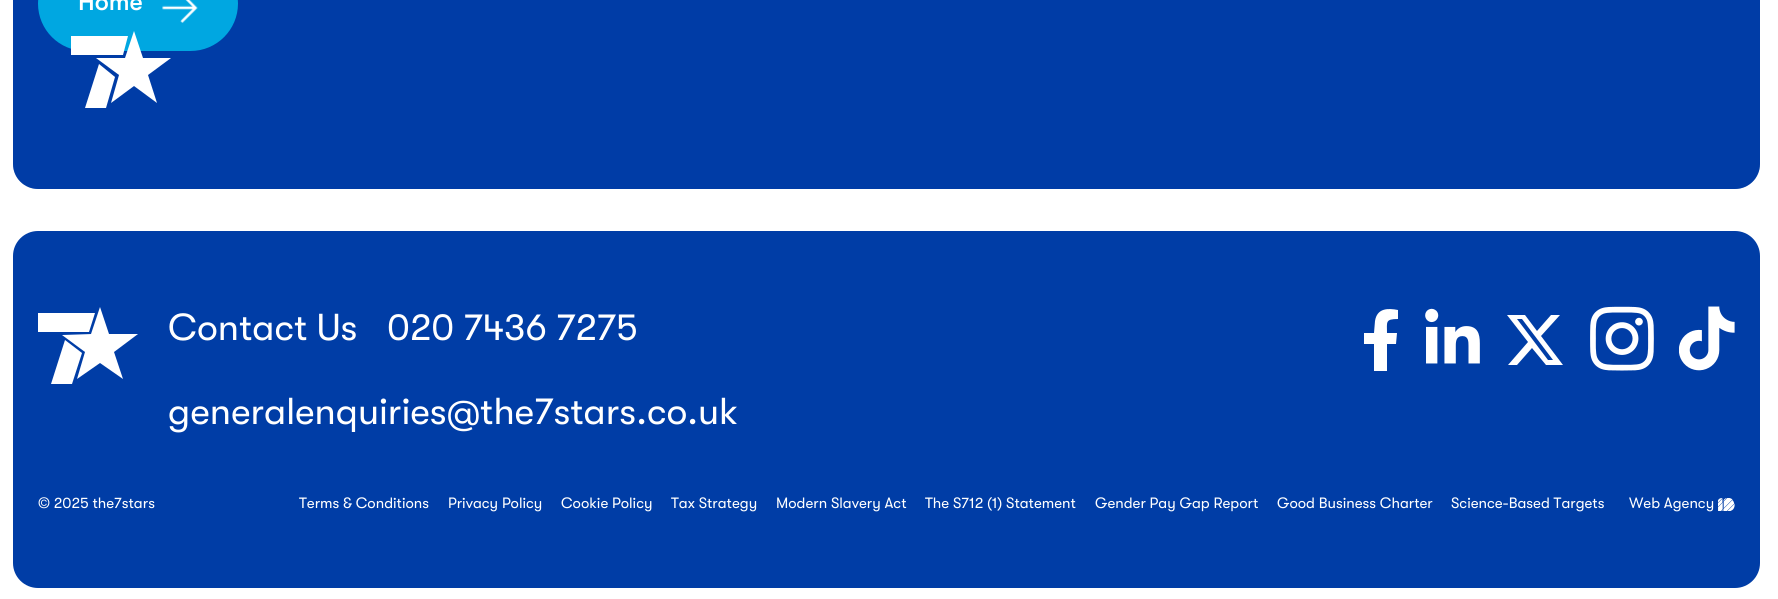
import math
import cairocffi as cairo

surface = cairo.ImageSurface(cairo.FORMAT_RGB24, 1778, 599)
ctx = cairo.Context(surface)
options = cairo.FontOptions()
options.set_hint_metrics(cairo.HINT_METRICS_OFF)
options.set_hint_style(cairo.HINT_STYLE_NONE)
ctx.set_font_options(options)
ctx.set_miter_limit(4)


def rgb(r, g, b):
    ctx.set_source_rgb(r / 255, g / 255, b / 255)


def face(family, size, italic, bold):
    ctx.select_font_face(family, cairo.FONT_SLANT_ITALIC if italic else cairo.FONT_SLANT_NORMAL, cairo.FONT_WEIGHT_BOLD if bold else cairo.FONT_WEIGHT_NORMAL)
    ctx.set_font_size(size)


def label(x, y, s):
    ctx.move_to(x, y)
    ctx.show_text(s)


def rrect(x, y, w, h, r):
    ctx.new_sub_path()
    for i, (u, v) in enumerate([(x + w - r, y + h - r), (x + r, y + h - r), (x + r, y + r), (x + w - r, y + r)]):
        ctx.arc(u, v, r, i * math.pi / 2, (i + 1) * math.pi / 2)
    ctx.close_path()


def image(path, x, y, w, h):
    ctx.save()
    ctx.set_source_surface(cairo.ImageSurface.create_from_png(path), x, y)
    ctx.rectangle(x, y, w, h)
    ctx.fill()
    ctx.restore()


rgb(255, 255, 255)
ctx.paint()
rgb(0, 61, 166)
rrect(13, -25, 1747, 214, 25)
ctx.fill()
ctx.set_source_rgba(0, 0.239, 0.651, 0.29)
rrect(13, -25, 1747, 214, 25)
ctx.fill()
rgb(0, 167, 225)
rrect(39.5, -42.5, 197, 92, 46)
ctx.fill_preserve()
ctx.set_line_width(3)
ctx.stroke()
face('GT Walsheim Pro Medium', 25, 0, 0)
rgb(255, 255, 255)
label(78, 10, 'Home')
image('image0.png', 162, 0, 36, 23)
ctx.new_path()
ctx.move_to(128, 36)
ctx.line_to(71, 36)
ctx.line_to(71, 55)
ctx.line_to(123, 55)
ctx.close_path()
ctx.fill()
ctx.new_path()
ctx.move_to(99, 64)
ctx.line_to(85, 108)
ctx.line_to(106, 108)
ctx.line_to(115, 77)
ctx.close_path()
ctx.fill()
ctx.new_path()
ctx.move_to(157, 103)
ctx.line_to(134, 86)
ctx.line_to(111, 103)
ctx.line_to(119, 75)
ctx.line_to(96, 58)
ctx.line_to(125, 58)
ctx.line_to(134, 31)
ctx.line_to(143, 58)
ctx.line_to(171, 58)
ctx.line_to(148, 75)
ctx.close_path()
ctx.fill()
rgb(0, 61, 166)
rrect(13, 231, 1747, 357, 25)
ctx.fill()
rgb(255, 255, 255)
ctx.new_path()
ctx.move_to(95, 313)
ctx.line_to(38, 313)
ctx.line_to(38, 332)
ctx.line_to(89, 332)
ctx.close_path()
ctx.fill()
ctx.new_path()
ctx.move_to(65, 340)
ctx.line_to(51, 384)
ctx.line_to(72, 384)
ctx.line_to(82, 353)
ctx.close_path()
ctx.fill()
ctx.new_path()
ctx.move_to(123, 379)
ctx.line_to(100, 363)
ctx.line_to(77, 379)
ctx.line_to(85, 352)
ctx.line_to(62, 335)
ctx.line_to(91, 334)
ctx.line_to(100, 307)
ctx.line_to(109, 334)
ctx.line_to(138, 334)
ctx.line_to(114, 352)
ctx.close_path()
ctx.fill()
face('GT Walsheim Pro', 37.5, 0, 0)
label(168, 340, 'Contact Us')
label(387, 340, '020 7436 7275')
label(168, 424, 'generalenquiries@the7stars.co.uk')
ctx.new_path()
ctx.move_to(1396, 344)
ctx.line_to(1387, 344)
ctx.line_to(1387, 371)
ctx.line_to(1374, 371)
ctx.line_to(1374, 344)
ctx.line_to(1364, 344)
ctx.line_to(1364, 333)
ctx.line_to(1374, 333)
ctx.line_to(1375, 321)
ctx.curve_to(1377, 308, 1388, 308, 1398, 310)
ctx.line_to(1398, 319)
ctx.curve_to(1385, 319, 1387, 322, 1387, 333)
ctx.line_to(1397, 333)
ctx.close_path()
ctx.fill()
image('image1.png', 1425, 308, 55, 56)
ctx.new_path()
ctx.move_to(1551, 315)
ctx.line_to(1560, 315)
ctx.line_to(1541, 336)
ctx.line_to(1563, 365)
ctx.line_to(1546, 365)
ctx.line_to(1532, 348)
ctx.line_to(1517, 365)
ctx.line_to(1508, 365)
ctx.line_to(1528, 342)
ctx.line_to(1507, 315)
ctx.line_to(1525, 315)
ctx.line_to(1537, 331)
ctx.close_path()
ctx.move_to(1548, 360)
ctx.line_to(1553, 360)
ctx.line_to(1522, 319)
ctx.line_to(1517, 319)
ctx.close_path()
ctx.fill()
image('image2.png', 1590, 306, 64, 65)
image('image3.png', 1679, 306, 56, 65)
face('GT Walsheim Pro', 15, 0, 0)
label(38, 508, '© 2025 the7stars')
label(299, 508, 'Terms & Conditions')
label(448, 508, 'Privacy Policy')
label(561, 508, 'Cookie Policy')
label(671, 508, 'Tax Strategy')
label(776, 508, 'Modern Slavery Act')
label(925, 508, 'The S712 (1) Statement')
label(1095, 508, 'Gender Pay Gap Report')
label(1277, 508, 'Good Business Charter')
label(1451, 508, 'Science-Based Targets')
label(1629, 508, 'Web Agency')
image('image4.png', 1718, 498, 17, 13)
surface.write_to_png('render.png')
